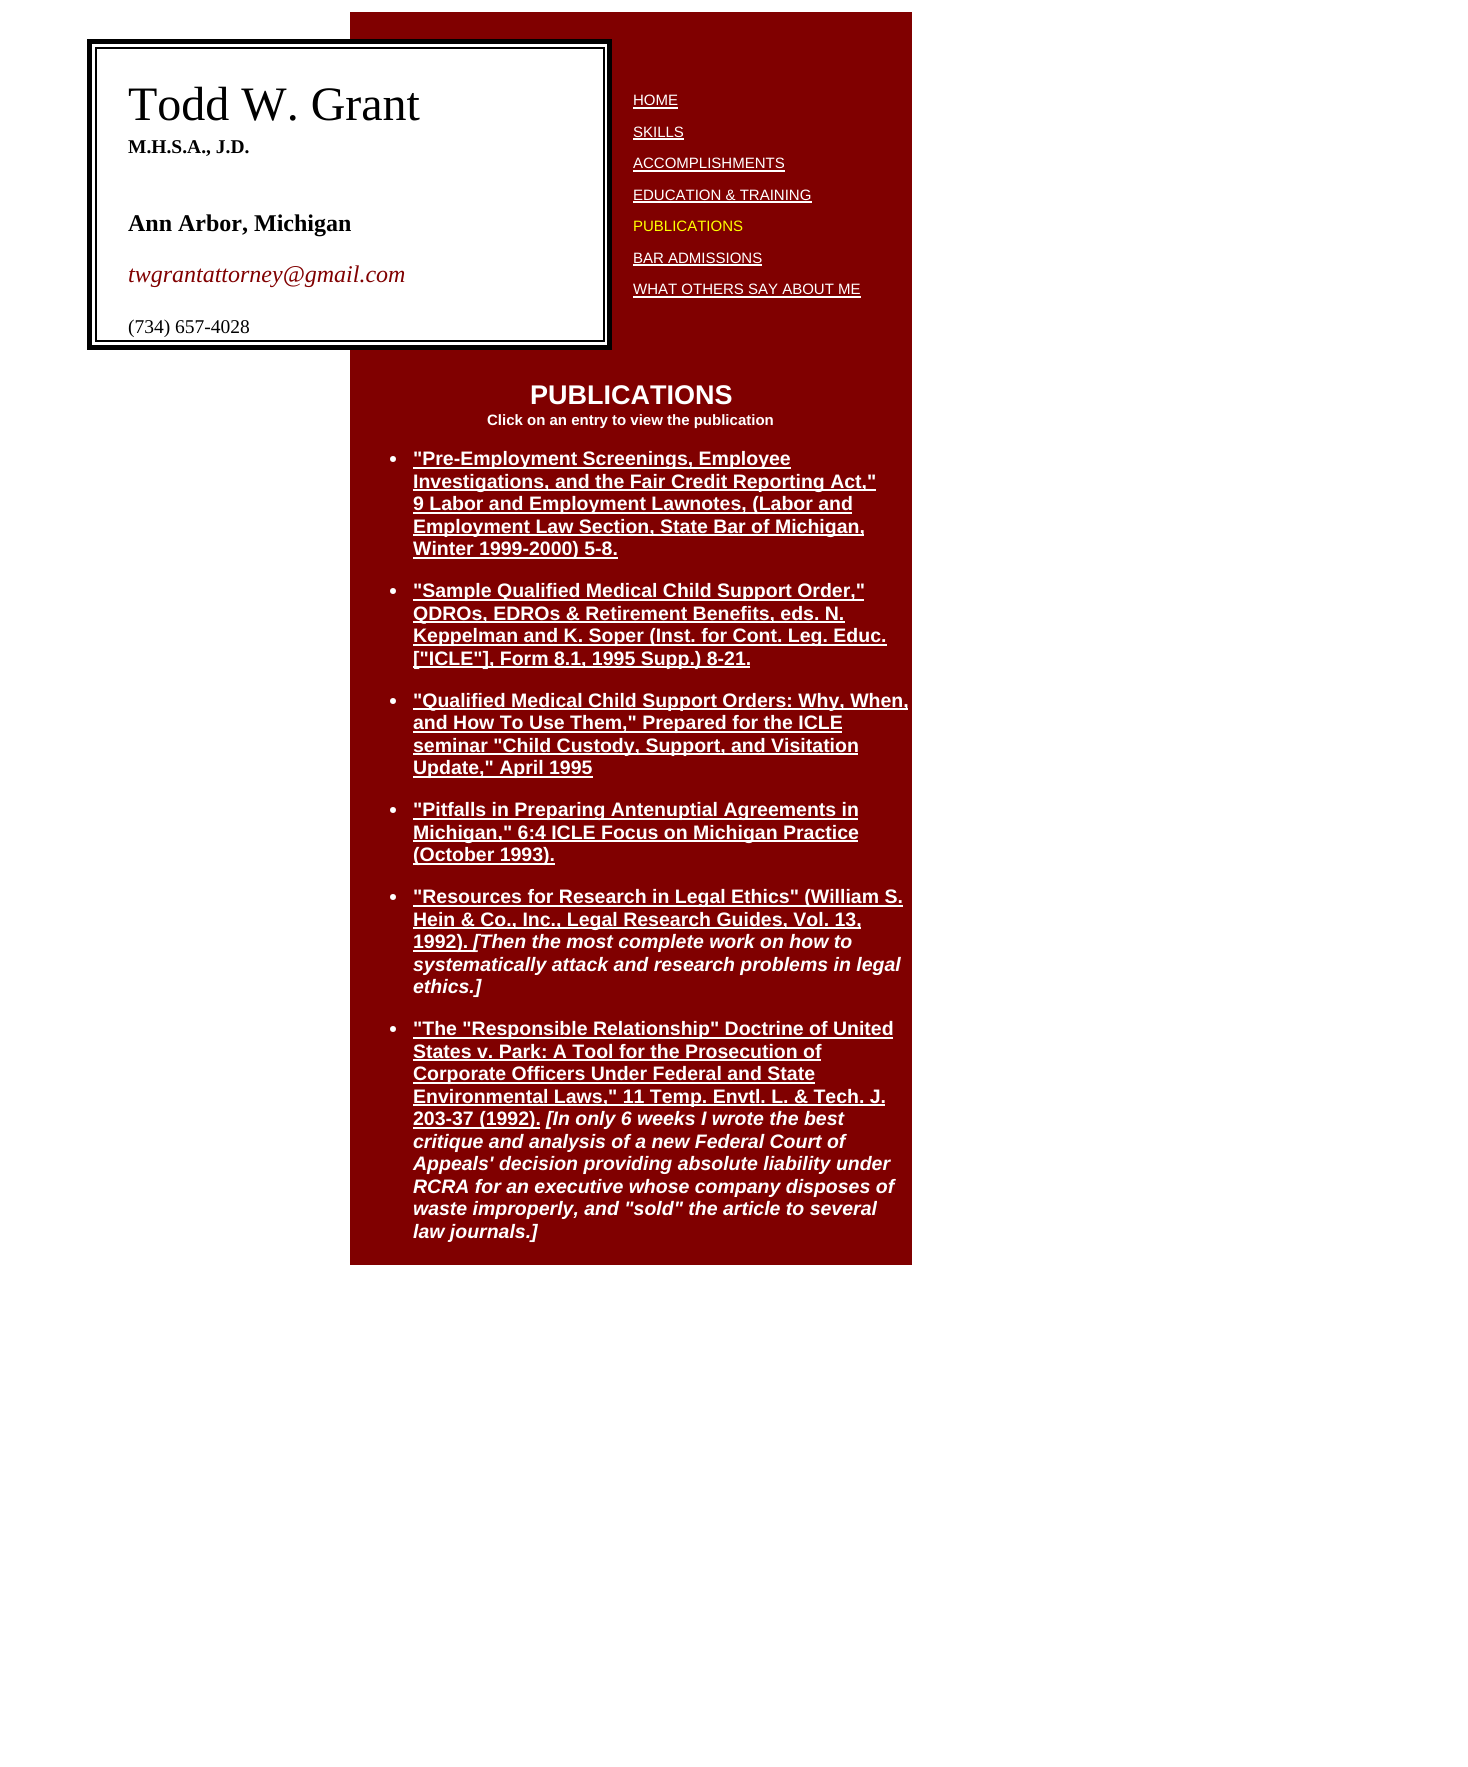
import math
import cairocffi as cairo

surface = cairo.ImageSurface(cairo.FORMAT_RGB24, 1468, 1767)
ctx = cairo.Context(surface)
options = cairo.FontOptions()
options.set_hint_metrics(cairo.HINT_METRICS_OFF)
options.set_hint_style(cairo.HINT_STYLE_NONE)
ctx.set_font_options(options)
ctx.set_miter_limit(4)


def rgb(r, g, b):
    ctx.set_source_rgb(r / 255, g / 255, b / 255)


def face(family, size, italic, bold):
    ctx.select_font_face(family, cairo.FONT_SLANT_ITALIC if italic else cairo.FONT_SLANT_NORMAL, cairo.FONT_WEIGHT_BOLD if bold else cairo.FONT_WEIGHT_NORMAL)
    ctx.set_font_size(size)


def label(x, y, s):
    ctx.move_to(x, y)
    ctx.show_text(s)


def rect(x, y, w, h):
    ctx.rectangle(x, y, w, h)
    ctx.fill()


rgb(255, 255, 255)
ctx.paint()
rgb(128, 0, 0)
rect(350, 12, 562, 27)
ctx.rectangle(89.5, 41.5, 520, 306)
rgb(0, 0, 0)
ctx.set_line_width(5)
ctx.stroke()
ctx.rectangle(96, 48, 508, 293)
ctx.set_line_width(2)
ctx.stroke()
face('Liberation Serif', 48, 0, 0)
label(128, 120, 'Todd W. Grant')
face('Liberation Serif', 19.5, 0, 1)
label(128, 153, 'M.H.S.A., J.D.')
face('Liberation Serif', 24, 0, 1)
label(128, 231, 'Ann Arbor, Michigan')
face('Liberation Serif', 24, 1, 0)
rgb(128, 0, 0)
label(128, 282, 'twgrantattorney@gmail.com')
face('Liberation Serif', 19.5, 0, 0)
rgb(0, 0, 0)
label(128, 333, '(734) 657-4028')
rgb(128, 0, 0)
rect(612, 39, 300, 311)
face('Liberation Sans', 15, 0, 0)
rgb(255, 255, 255)
label(633, 105, 'HOME')
rect(633, 107, 45, 2)
label(633, 137, 'SKILLS')
rect(633, 138, 51, 2)
label(633, 168, 'ACCOMPLISHMENTS')
rect(633, 170, 152, 2)
label(633, 200, 'EDUCATION & TRAINING')
rect(633, 201, 179, 2)
rgb(255, 255, 0)
label(633, 231, 'PUBLICATIONS')
rgb(255, 255, 255)
label(633, 263, 'BAR ADMISSIONS')
rect(633, 264, 129, 2)
label(633, 294, 'WHAT OTHERS SAY ABOUT ME')
rect(633, 296, 228, 2)
rgb(128, 0, 0)
rect(350, 350, 562, 915)
face('Liberation Sans', 27, 0, 1)
rgb(255, 255, 255)
label(530, 404, 'PUBLICATIONS')
face('Liberation Sans', 15, 0, 1)
label(487, 425, 'Click on an entry to view the publication')
ctx.new_path()
ctx.arc(393, 459, 3, 0, 2 * math.pi)
ctx.fill()
rect(413, 467, 378, 2)
face('Liberation Sans', 19.5, 0, 1)
label(413, 465, '"Pre-Employment Screenings, Employee')
rect(413, 489, 463, 2)
label(413, 488, 'Investigations, and the Fair Credit Reporting Act,"')
rect(413, 512, 439, 2)
label(413, 510, '9 Labor and Employment Lawnotes, (Labor and')
rect(413, 534, 451, 2)
label(413, 533, 'Employment Law Section, State Bar of Michigan,')
rect(413, 557, 205, 2)
label(413, 555, 'Winter 1999-2000) 5-8.')
ctx.new_path()
ctx.arc(393, 591, 3, 0, 2 * math.pi)
ctx.fill()
rect(413, 599, 451, 2)
label(413, 597, '"Sample Qualified Medical Child Support Order,"')
rect(413, 621, 432, 2)
label(413, 620, 'QDROs, EDROs & Retirement Benefits, eds. N.')
rect(413, 644, 474, 2)
label(413, 642, 'Keppelman and K. Soper (Inst. for Cont. Leg. Educ.')
rect(413, 666, 337, 2)
label(413, 665, '["ICLE"], Form 8.1, 1995 Supp.) 8-21.')
ctx.new_path()
ctx.arc(393, 701, 3, 0, 2 * math.pi)
ctx.fill()
rect(413, 708, 495, 2)
label(413, 707, '"Qualified Medical Child Support Orders: Why, When,')
rect(413, 731, 429, 2)
label(413, 729, 'and How To Use Them," Prepared for the ICLE')
rect(413, 753, 445, 2)
label(413, 752, 'seminar "Child Custody, Support, and Visitation')
rect(413, 776, 180, 2)
label(413, 774, 'Update," April 1995')
ctx.new_path()
ctx.arc(393, 810, 3, 0, 2 * math.pi)
ctx.fill()
rect(413, 818, 445, 2)
label(413, 816, '"Pitfalls in Preparing Antenuptial Agreements in')
rect(413, 840, 445, 2)
label(413, 839, 'Michigan," 6:4 ICLE Focus on Michigan Practice')
rect(413, 863, 142, 2)
label(413, 861, '(October 1993).')
ctx.new_path()
ctx.arc(393, 897, 3, 0, 2 * math.pi)
ctx.fill()
rect(413, 905, 490, 2)
label(413, 903, '"Resources for Research in Legal Ethics" (William S.')
rect(413, 927, 448, 2)
label(413, 926, 'Hein & Co., Inc., Legal Research Guides, Vol. 13,')
rect(413, 950, 60, 2)
label(413, 948, '1992).')
face('Liberation Sans', 19.5, 1, 1)
label(473, 948, '[Then the most complete work on how to')
label(413, 971, 'systematically attack and research problems in legal')
label(413, 993, 'ethics.]')
ctx.new_path()
ctx.arc(393, 1029, 3, 0, 2 * math.pi)
ctx.fill()
rect(413, 1037, 480, 2)
face('Liberation Sans', 19.5, 0, 1)
label(413, 1035, '"The "Responsible Relationship" Doctrine of United')
label(413, 1058, 'States v. Park: A Tool for the Prosecution of')
rect(413, 1059, 408, 2)
rect(413, 1082, 402, 2)
label(413, 1080, 'Corporate Officers Under Federal and State')
rect(413, 1104, 472, 2)
label(413, 1103, 'Environmental Laws," 11 Temp. Envtl. L. & Tech. J.')
rect(413, 1127, 127, 2)
label(413, 1125, '203-37 (1992).')
face('Liberation Sans', 19.5, 1, 1)
label(546, 1125, '[In only 6 weeks I wrote the best')
label(413, 1148, 'critique and analysis of a new Federal Court of')
label(413, 1170, 'Appeals\' decision providing absolute liability under')
label(413, 1193, 'RCRA for an executive whose company disposes of')
label(413, 1215, 'waste improperly, and "sold" the article to several')
label(413, 1238, 'law journals.]')
surface.write_to_png('render.png')
